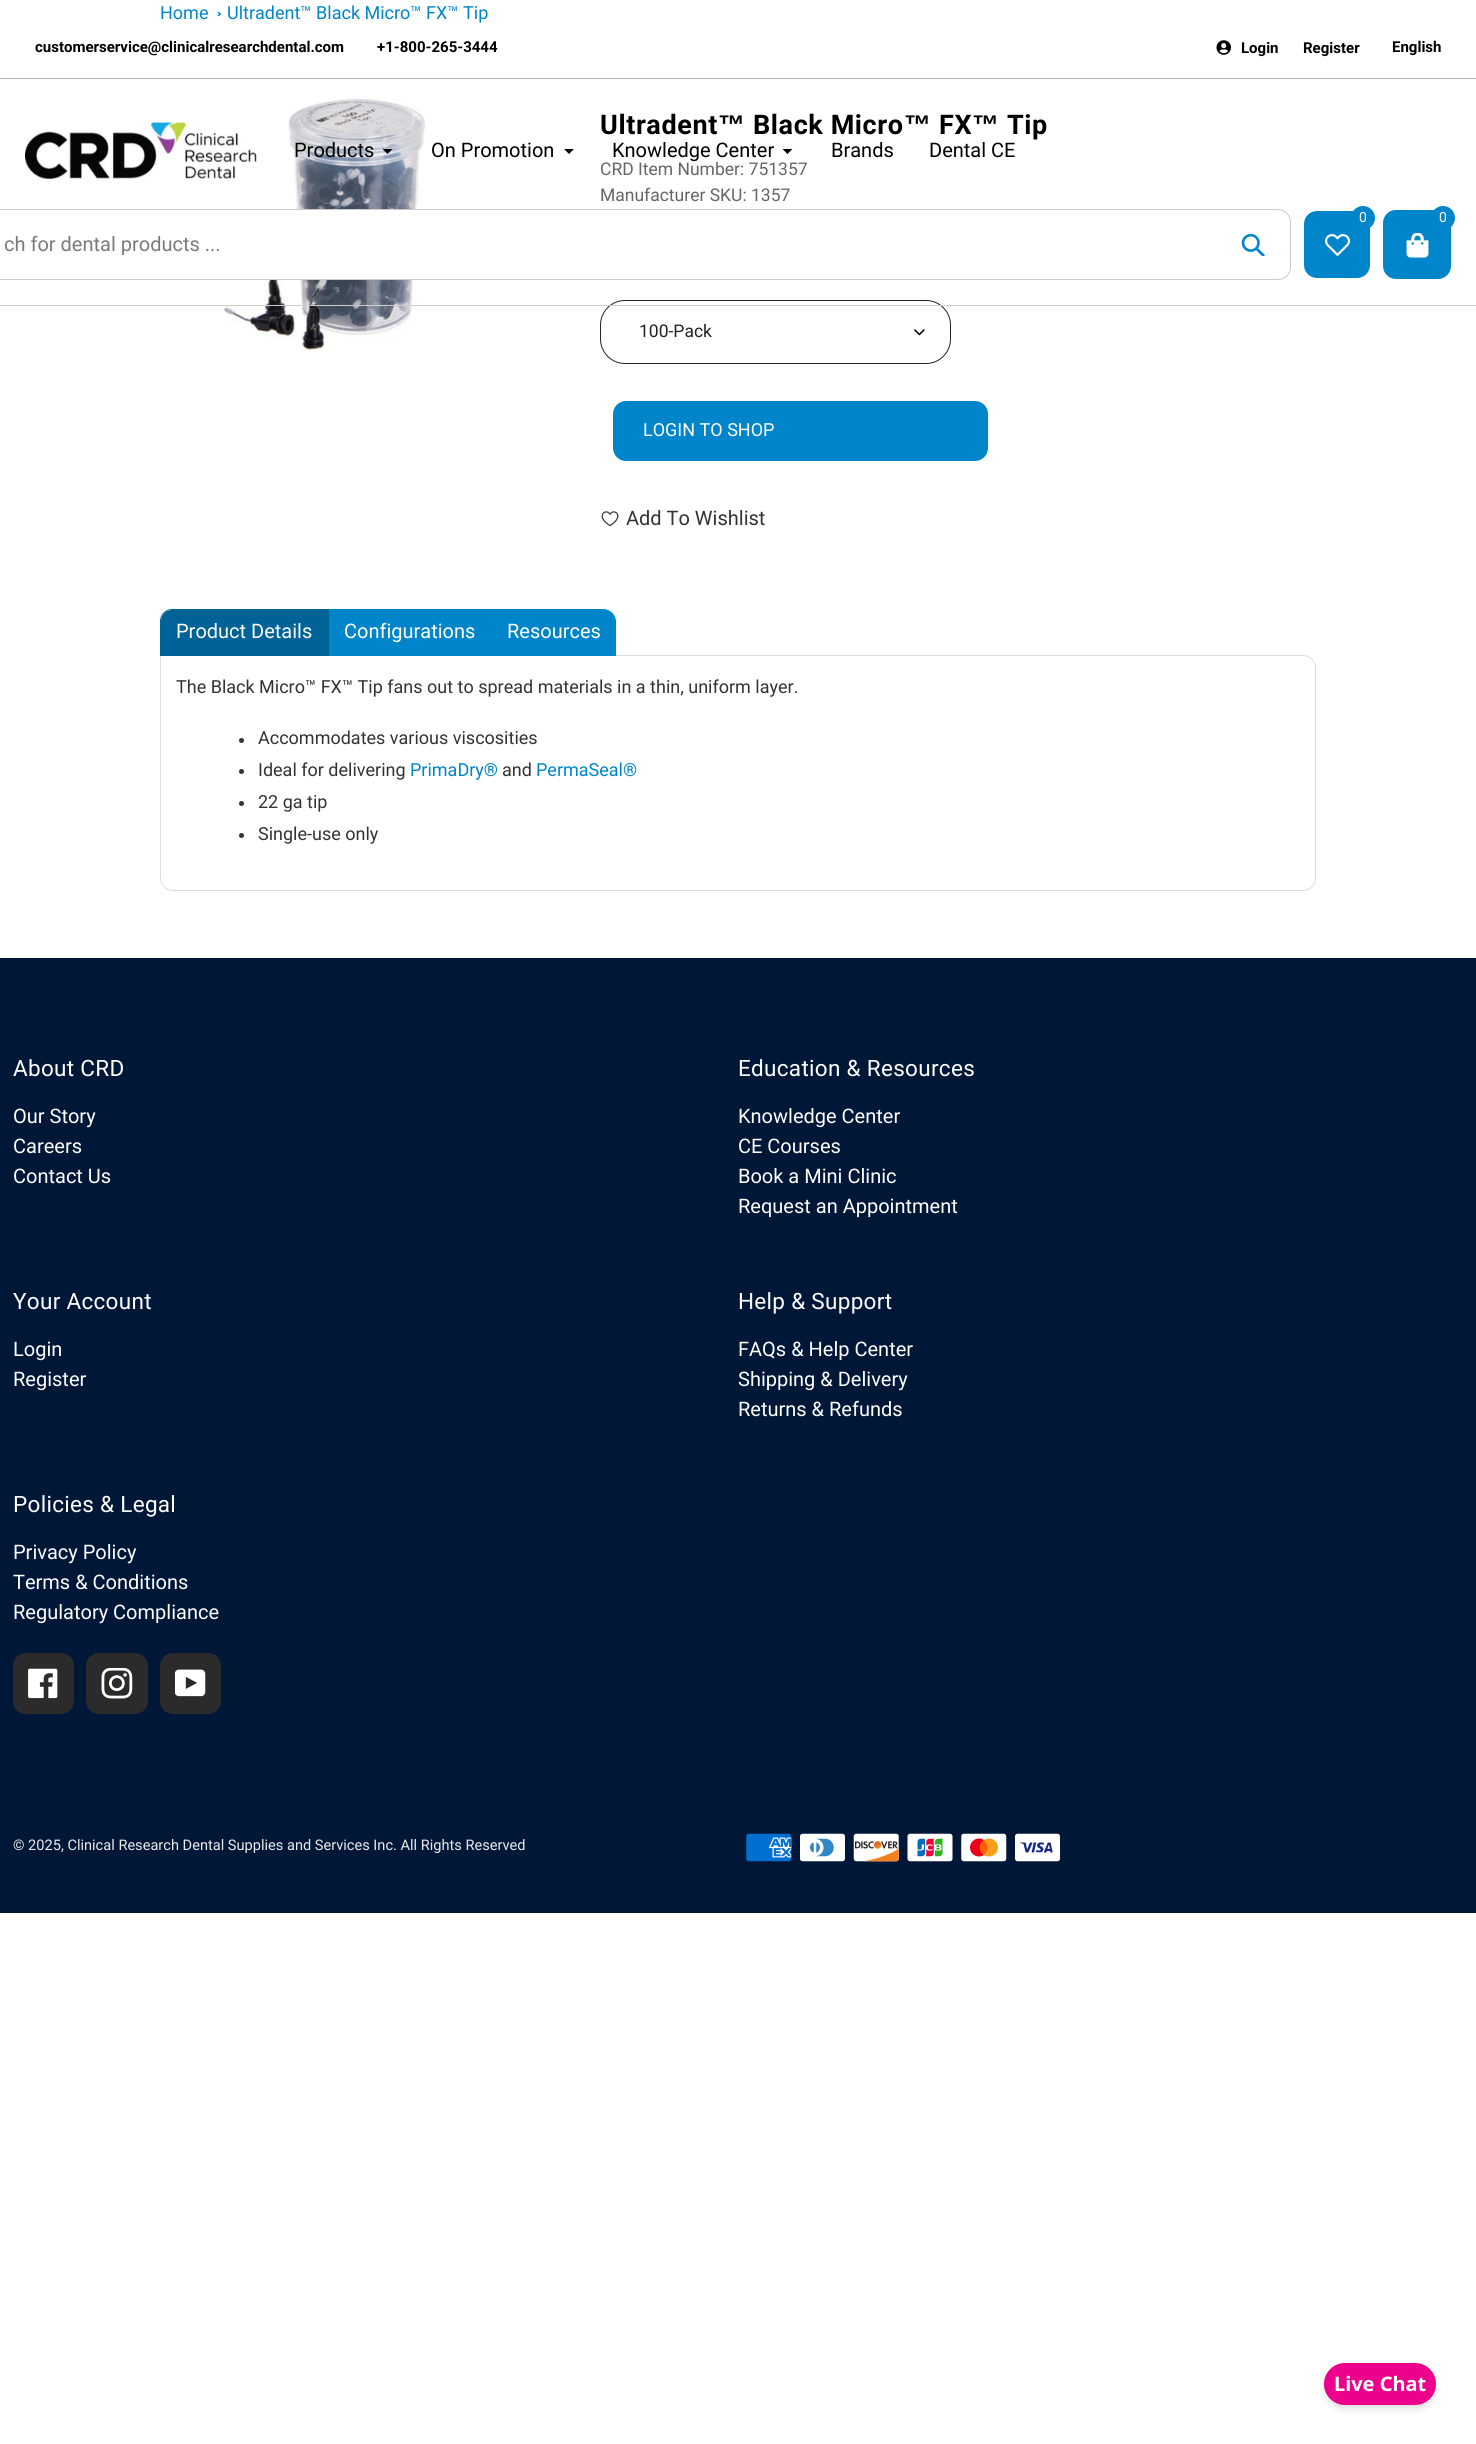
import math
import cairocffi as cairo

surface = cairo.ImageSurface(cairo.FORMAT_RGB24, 1476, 2444)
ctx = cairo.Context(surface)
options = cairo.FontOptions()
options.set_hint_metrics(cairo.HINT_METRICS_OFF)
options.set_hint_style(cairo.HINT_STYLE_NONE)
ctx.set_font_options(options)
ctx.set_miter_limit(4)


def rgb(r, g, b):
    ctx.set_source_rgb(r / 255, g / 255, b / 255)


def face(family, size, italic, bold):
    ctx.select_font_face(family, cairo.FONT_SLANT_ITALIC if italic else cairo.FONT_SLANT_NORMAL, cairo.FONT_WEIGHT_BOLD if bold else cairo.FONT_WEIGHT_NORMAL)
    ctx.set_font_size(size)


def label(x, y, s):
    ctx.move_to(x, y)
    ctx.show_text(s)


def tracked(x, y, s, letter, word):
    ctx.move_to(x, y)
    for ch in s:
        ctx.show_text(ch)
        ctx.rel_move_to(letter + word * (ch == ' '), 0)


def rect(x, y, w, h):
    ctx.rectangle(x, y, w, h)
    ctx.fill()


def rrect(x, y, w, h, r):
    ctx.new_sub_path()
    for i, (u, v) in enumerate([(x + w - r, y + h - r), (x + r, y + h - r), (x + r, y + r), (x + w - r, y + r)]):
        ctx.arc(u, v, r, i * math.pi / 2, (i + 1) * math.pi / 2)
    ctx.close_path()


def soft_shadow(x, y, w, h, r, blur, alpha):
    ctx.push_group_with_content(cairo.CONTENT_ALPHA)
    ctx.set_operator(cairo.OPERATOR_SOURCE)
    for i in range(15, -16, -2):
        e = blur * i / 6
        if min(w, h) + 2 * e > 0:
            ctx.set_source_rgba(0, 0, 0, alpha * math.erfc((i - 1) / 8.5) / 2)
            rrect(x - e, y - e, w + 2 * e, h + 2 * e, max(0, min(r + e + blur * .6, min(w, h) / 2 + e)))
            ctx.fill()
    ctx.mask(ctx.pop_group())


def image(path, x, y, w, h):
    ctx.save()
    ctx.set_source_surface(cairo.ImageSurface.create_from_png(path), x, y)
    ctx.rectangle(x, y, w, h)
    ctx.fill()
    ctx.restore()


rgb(255, 255, 255)
ctx.paint()
face('Roboto', 18, 0, 0)
rgb(0, 133, 202)
label(160, 19, 'Home')
ctx.new_path()
ctx.move_to(218.5, 11.5)
ctx.line_to(221, 14)
ctx.line_to(220, 15)
ctx.line_to(217.5, 12.5)
ctx.close_path()
ctx.fill()
ctx.new_path()
ctx.move_to(220, 13)
ctx.line_to(221, 14)
ctx.line_to(218.5, 16.5)
ctx.line_to(217.5, 15.5)
ctx.close_path()
ctx.fill()
label(227, 19, 'Ultradent™ Black Micro™ FX™ Tip')
image('image0.png', 224, 97, 202, 256)
face('Roboto', 27, 0, 1)
rgb(0, 0, 0)
tracked(600, 134, 'Ultradent', 0.6, 0)
face('Liberation Sans', 27, 0, 1)
tracked(718, 134, '™', 0.6, 0)
face('Roboto', 27, 0, 1)
tracked(753, 134, 'Black Micro', 0.6, 0)
face('Liberation Sans', 27, 0, 1)
tracked(904, 134, '™', 0.6, 0)
face('Roboto', 27, 0, 1)
tracked(939, 134, 'FX', 0.6, 0)
face('Liberation Sans', 27, 0, 1)
tracked(972, 134, '™', 0.6, 0)
face('Roboto', 27, 0, 1)
tracked(1007, 134, 'Tip', 0.6, 0)
face('Roboto', 17.5, 0, 0)
rgb(102, 102, 102)
label(600, 175, 'CRD Item Number: 751357')
label(600, 201, 'Manufacturer SKU: 1357')
image('image1.png', 914, 329, 11, 7)
rrect(600.5, 300.5, 350, 63, 24.5)
rgb(35, 35, 35)
ctx.set_line_width(1)
ctx.stroke()
label(639, 337, '100-Pack')
rgb(0, 133, 202)
rrect(613, 401, 375, 60, 13)
ctx.fill()
face('Roboto', 18, 0, 0)
rgb(255, 255, 255)
label(643, 436, 'LOGIN TO SHOP')
image('image2.png', 601, 511, 18, 16)
face('Roboto', 20, 0, 0)
rgb(51, 51, 51)
label(626, 525, 'Add To Wishlist')
ctx.new_path()
ctx.move_to(160.5, 655.5)
ctx.line_to(1303, 655.5)
ctx.curve_to(1310, 655.5, 1315.5, 661, 1315.5, 668)
ctx.line_to(1315.5, 878)
ctx.curve_to(1315.5, 885, 1310, 890.5, 1303, 890.5)
ctx.line_to(173, 890.5)
ctx.curve_to(166, 890.5, 160.5, 885, 160.5, 878)
ctx.close_path()
rgb(221, 221, 221)
ctx.stroke()
rgb(0, 99, 151)
ctx.new_path()
ctx.move_to(172, 610)
ctx.line_to(328, 610)
ctx.line_to(328, 656)
ctx.line_to(161, 656)
ctx.line_to(161, 621)
ctx.curve_to(161, 615, 166, 610, 172, 610)
ctx.close_path()
ctx.fill()
ctx.set_fill_rule(cairo.FILL_RULE_EVEN_ODD)
ctx.new_path()
ctx.move_to(172, 609)
ctx.line_to(329, 609)
ctx.line_to(329, 656)
ctx.line_to(160, 656)
ctx.line_to(160, 621)
ctx.curve_to(160, 614, 166, 609, 172, 609)
ctx.close_path()
ctx.move_to(172, 610)
ctx.line_to(328, 610)
ctx.line_to(328, 656)
ctx.line_to(161, 656)
ctx.line_to(161, 621)
ctx.curve_to(161, 615, 166, 610, 172, 610)
ctx.close_path()
ctx.fill()
rgb(255, 255, 255)
label(176, 638, 'Product Details')
rgb(0, 133, 202)
rect(329, 609, 161, 47)
rgb(255, 255, 255)
label(344, 638, 'Configurations')
rgb(0, 133, 202)
ctx.new_path()
ctx.move_to(490.5, 609.5)
ctx.line_to(603, 609.5)
ctx.curve_to(610, 609.5, 615.5, 615, 615.5, 622)
ctx.line_to(615.5, 655.5)
ctx.line_to(490.5, 655.5)
ctx.close_path()
ctx.fill_preserve()
ctx.stroke()
rgb(255, 255, 255)
label(507, 638, 'Resources')
face('Roboto', 18, 0, 0)
rgb(51, 51, 51)
label(176, 693, 'The Black Micro™ FX™ Tip fans out to spread materials in a thin, uniform layer.')
ctx.new_path()
ctx.arc(241.5, 740.5, 2.5, 0, 2 * math.pi)
ctx.fill()
label(258, 744, 'Accommodates various viscosities')
ctx.new_path()
ctx.arc(241.5, 771.5, 2.5, 0, 2 * math.pi)
ctx.fill()
label(258, 776, 'Ideal for delivering')
rgb(0, 133, 202)
label(410, 776, 'PrimaDry®')
rgb(51, 51, 51)
label(502, 776, 'and')
rgb(0, 133, 202)
label(536, 776, 'PermaSeal®')
rgb(51, 51, 51)
ctx.new_path()
ctx.arc(241.5, 803.5, 2.5, 0, 2 * math.pi)
ctx.fill()
label(258, 808, '22 ga tip')
ctx.new_path()
ctx.arc(241.5, 835.5, 2.5, 0, 2 * math.pi)
ctx.fill()
label(258, 840, 'Single-use only')
rgb(0, 23, 56)
rect(0, 958, 1476, 955)
face('Roboto', 22.5, 0, 0)
rgb(255, 255, 255)
tracked(13, 1076, 'About CRD', 0.3, 0)
face('Roboto', 20, 0, 0)
label(13, 1123, 'Our Story')
label(13, 1153, 'Careers')
label(13, 1183, 'Contact Us')
face('Roboto', 22.5, 0, 0)
tracked(738, 1076, 'Education & Resources', 0.3, 0)
face('Roboto', 20, 0, 0)
label(738, 1123, 'Knowledge Center')
label(738, 1153, 'CE Courses')
label(738, 1183, 'Book a Mini Clinic')
label(738, 1213, 'Request an Appointment')
face('Roboto', 22.5, 0, 0)
tracked(13, 1309, 'Your Account', 0.3, 0)
face('Roboto', 20, 0, 0)
label(13, 1356, 'Login')
label(13, 1386, 'Register')
face('Roboto', 22.5, 0, 0)
tracked(738, 1309, 'Help & Support', 0.3, 0)
face('Roboto', 20, 0, 0)
label(738, 1356, 'FAQs & Help Center')
label(738, 1386, 'Shipping & Delivery')
label(738, 1416, 'Returns & Refunds')
face('Roboto', 22.5, 0, 0)
tracked(13, 1512, 'Policies & Legal', 0.3, 0)
face('Roboto', 20, 0, 0)
label(13, 1559, 'Privacy Policy')
label(13, 1589, 'Terms & Conditions')
label(13, 1619, 'Regulatory Compliance')
rgb(43, 43, 43)
rrect(13, 1653, 61, 61, 13)
ctx.fill()
image('image3.png', 28, 1668, 30, 31)
rrect(86, 1653, 62, 61, 13)
ctx.fill()
image('image4.png', 101, 1668, 32, 31)
rrect(160, 1653, 61, 61, 13)
ctx.fill()
image('image5.png', 175, 1669, 31, 28)
face('Roboto', 14.6, 0, 0)
rgb(235, 235, 235)
label(13, 1850, '© 2025, Clinical Research Dental Supplies and Services Inc. All Rights Reserved')
image('image6.png', 746, 1833, 46, 29)
image('image7.png', 800, 1833, 45, 29)
image('image8.png', 853, 1833, 46, 29)
image('image9.png', 907, 1833, 46, 29)
image('image10.png', 961, 1833, 46, 29)
image('image11.png', 1015, 1833, 45, 29)
rgb(204, 204, 204)
rect(0, 305, 1476, 1)
rgb(179, 179, 179)
rect(0, 78, 1476, 1)
face('Roboto', 15, 0, 1)
rgb(0, 0, 0)
label(35, 52, 'customerservice@clinicalresearchdental.com')
label(377, 52, '+1-800-265-3444')
image('image12.png', 1216, 40, 15, 15)
label(1241, 53, 'Login')
label(1303, 53, 'Register')
label(1392, 52, 'English')
image('image13.png', 25, 122, 232, 57)
face('Roboto', 20, 0, 0)
label(294, 157, 'Products')
ctx.set_fill_rule(cairo.FILL_RULE_WINDING)
ctx.new_path()
ctx.move_to(392.5, 149)
ctx.line_to(387.5, 154)
ctx.line_to(382.5, 149)
ctx.fill()
label(431, 157, 'On Promotion')
ctx.new_path()
ctx.move_to(574, 149)
ctx.line_to(569, 154)
ctx.line_to(564, 149)
ctx.fill()
label(612, 157, 'Knowledge Center')
ctx.new_path()
ctx.move_to(792.5, 149)
ctx.line_to(787.5, 154)
ctx.line_to(782.5, 149)
ctx.fill()
label(831, 157, 'Brands')
label(929, 157, 'Dental CE')
rgb(0, 133, 202)
rrect(1304, 211, 66, 67, 13)
ctx.fill()
ctx.arc(1363, 218, 12, 0, 2 * math.pi)
ctx.fill()
face('Roboto', 14, 0, 0)
rgb(255, 255, 255)
label(1359, 222, '0')
image('image14.png', 1325, 234, 25, 22)
rgb(0, 133, 202)
rrect(1383, 210, 68, 69, 13)
ctx.fill()
ctx.arc(1443, 218, 12, 0, 2 * math.pi)
ctx.fill()
rgb(255, 255, 255)
label(1439, 222, '0')
image('image15.png', 1406, 233, 23, 25)
rrect(-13.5, 209.5, 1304, 70, 12.5)
ctx.fill_preserve()
rgb(204, 204, 204)
ctx.stroke()
face('Roboto', 20, 0, 0)
rgb(123, 123, 123)
label(4, 251, 'ch for dental products ...')
image('image16.png', 1241, 233, 24, 23)
rgb(0, 0, 0)
soft_shadow(1325, 2366, 110, 40, 20, 2.5, 0.06)
soft_shadow(1325, 2369, 110, 40, 20, 4, 0.1)
rgb(236, 0, 140)
rrect(1324, 2363, 112, 42, 21)
ctx.fill()
face('Noto Sans', 20, 0, 1)
rgb(255, 255, 255)
label(1334, 2391, 'Live Chat')
surface.write_to_png('render.png')
